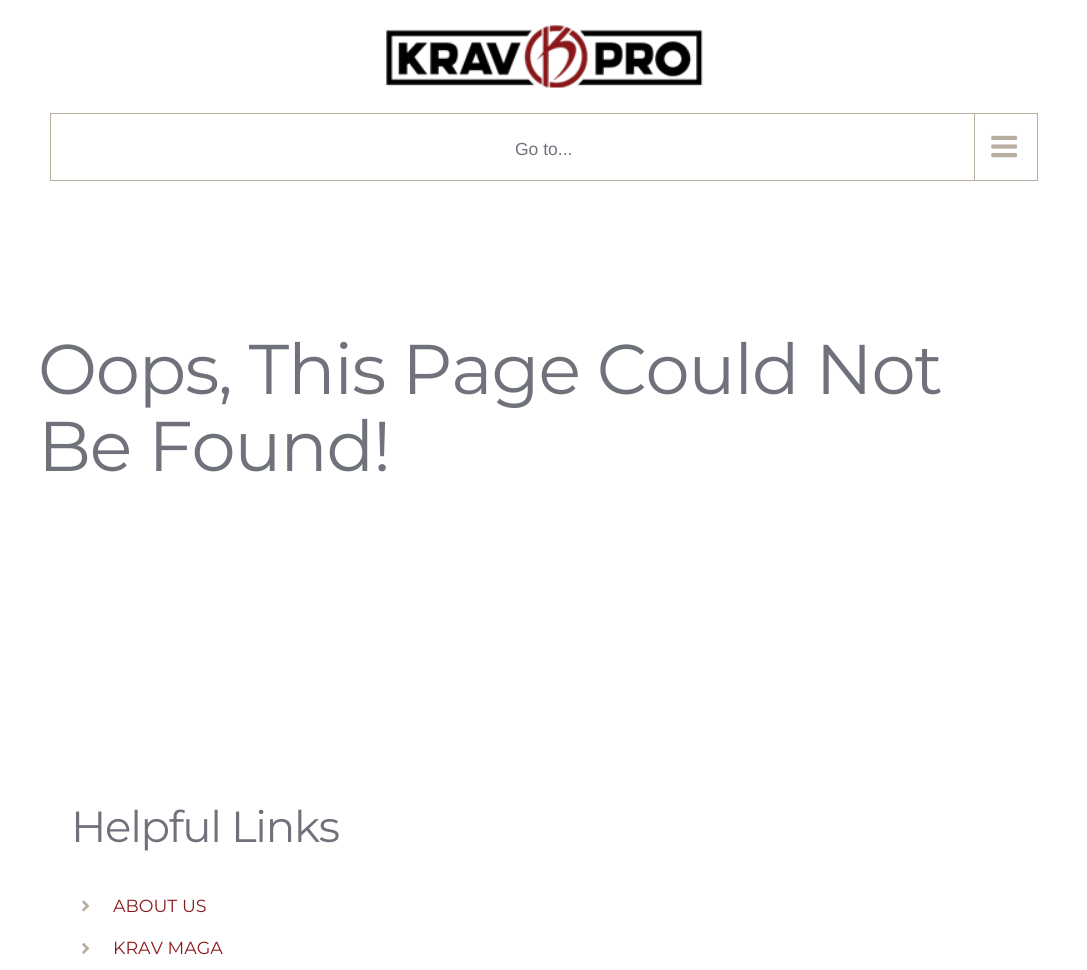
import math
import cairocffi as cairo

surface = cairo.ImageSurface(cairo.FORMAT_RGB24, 1087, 970)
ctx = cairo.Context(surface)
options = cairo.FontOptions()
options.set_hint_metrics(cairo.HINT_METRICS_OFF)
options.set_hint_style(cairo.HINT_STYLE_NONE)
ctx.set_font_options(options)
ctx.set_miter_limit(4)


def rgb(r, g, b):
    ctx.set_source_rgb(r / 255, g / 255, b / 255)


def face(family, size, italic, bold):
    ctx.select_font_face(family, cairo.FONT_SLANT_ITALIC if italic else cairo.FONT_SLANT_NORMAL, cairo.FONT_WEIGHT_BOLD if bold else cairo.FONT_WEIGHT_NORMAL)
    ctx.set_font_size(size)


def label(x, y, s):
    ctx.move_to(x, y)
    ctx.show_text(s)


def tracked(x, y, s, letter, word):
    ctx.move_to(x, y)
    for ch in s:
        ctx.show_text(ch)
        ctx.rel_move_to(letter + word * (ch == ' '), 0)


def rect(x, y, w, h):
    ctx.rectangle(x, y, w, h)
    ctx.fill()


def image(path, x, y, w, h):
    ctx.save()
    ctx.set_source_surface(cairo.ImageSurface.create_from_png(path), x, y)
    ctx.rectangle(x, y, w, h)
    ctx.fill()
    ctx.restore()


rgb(255, 255, 255)
ctx.paint()
image('image0.png', 386, 25, 317, 63)
ctx.rectangle(50.5, 113.5, 987, 67)
rgb(185, 175, 161)
ctx.set_line_width(1)
ctx.stroke()
face('Liberation Sans', 17.5, 0, 0)
rgb(111, 114, 123)
label(515, 155, 'Go to...')
rgb(185, 175, 161)
rect(974, 114, 1, 66)
image('image1.png', 991, 135, 26, 23)
face('Montserrat', 70.3, 0, 0)
rgb(111, 114, 123)
tracked(38, 394, 'Oops, This Page Could Not', -1.25, 0)
tracked(38, 471, 'Be Found!', -1.25, 0)
face('Montserrat', 43.5, 0, 0)
tracked(71, 842, 'Helpful Links', -1.25, 0)
image('image2.png', 82, 900, 7, 12)
face('Montserrat', 17.5, 0, 0)
rgb(138, 24, 26)
label(113, 912, 'ABOUT US')
image('image3.png', 82, 943, 8, 11)
label(113, 954, 'KRAV MAGA')
surface.write_to_png('render.png')
